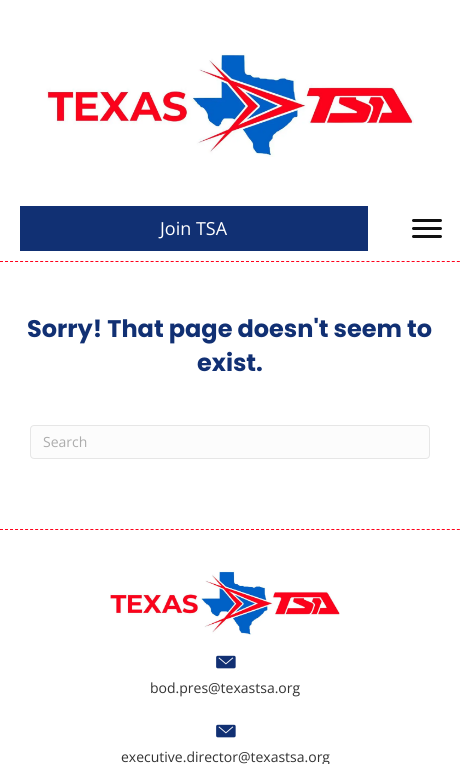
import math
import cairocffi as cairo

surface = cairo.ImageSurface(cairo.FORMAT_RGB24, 460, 764)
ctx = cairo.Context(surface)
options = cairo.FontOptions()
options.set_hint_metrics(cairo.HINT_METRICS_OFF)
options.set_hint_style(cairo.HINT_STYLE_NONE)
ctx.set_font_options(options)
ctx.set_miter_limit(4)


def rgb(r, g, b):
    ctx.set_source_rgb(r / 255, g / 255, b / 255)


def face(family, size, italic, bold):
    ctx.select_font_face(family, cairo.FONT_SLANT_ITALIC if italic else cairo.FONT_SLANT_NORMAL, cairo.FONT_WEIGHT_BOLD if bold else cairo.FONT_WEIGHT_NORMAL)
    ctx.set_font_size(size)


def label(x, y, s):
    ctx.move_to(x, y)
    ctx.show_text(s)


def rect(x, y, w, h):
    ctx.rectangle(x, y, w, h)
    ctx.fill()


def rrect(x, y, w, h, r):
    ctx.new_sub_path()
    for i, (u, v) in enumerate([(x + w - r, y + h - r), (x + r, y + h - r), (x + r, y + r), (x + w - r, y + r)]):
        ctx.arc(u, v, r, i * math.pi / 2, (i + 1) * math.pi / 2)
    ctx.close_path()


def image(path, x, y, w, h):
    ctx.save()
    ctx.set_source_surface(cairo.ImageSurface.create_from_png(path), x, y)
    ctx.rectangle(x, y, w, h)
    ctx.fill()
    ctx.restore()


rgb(255, 255, 255)
ctx.paint()
ctx.new_path()
ctx.move_to(0, 261.5)
ctx.line_to(460, 261.5)
rgb(255, 1, 27)
ctx.set_line_width(1)
ctx.set_dash([3, 2.02])
ctx.stroke()
image('image0.png', 46, 53, 368, 104)
rgb(17, 48, 115)
rect(20, 206, 348, 45)
face('Open Sans', 18, 0, 0)
rgb(255, 255, 255)
label(160, 235, 'Join TSA')
rgb(17, 17, 17)
rrect(412, 227, 30, 3, 1.5)
ctx.fill()
rrect(412, 219, 30, 3, 1.5)
ctx.fill()
rrect(412, 235, 30, 3, 1.5)
ctx.fill()
face('Poppins', 24, 0, 1)
rgb(17, 48, 115)
label(27, 337, 'Sorry! That page doesn\'t seem to')
label(197, 371, 'exist.')
rgb(252, 252, 252)
rrect(30.5, 425.5, 399, 33, 3.5)
ctx.fill_preserve()
rgb(230, 230, 230)
ctx.set_dash([])
ctx.stroke()
face('Open Sans', 14, 0, 0)
rgb(172, 172, 172)
label(43, 447, 'Search')
ctx.new_path()
ctx.move_to(0, 529.5)
ctx.line_to(460, 529.5)
rgb(255, 1, 27)
ctx.set_dash([3, 2.02])
ctx.stroke()
image('image1.png', 110, 570, 230, 65)
image('image2.png', 216, 655, 20, 14)
rgb(51, 51, 51)
label(150, 693, 'bod.pres@texastsa.org')
image('image2.png', 216, 724, 20, 14)
label(121, 762, 'executive.director@texastsa.org')
surface.write_to_png('render.png')
